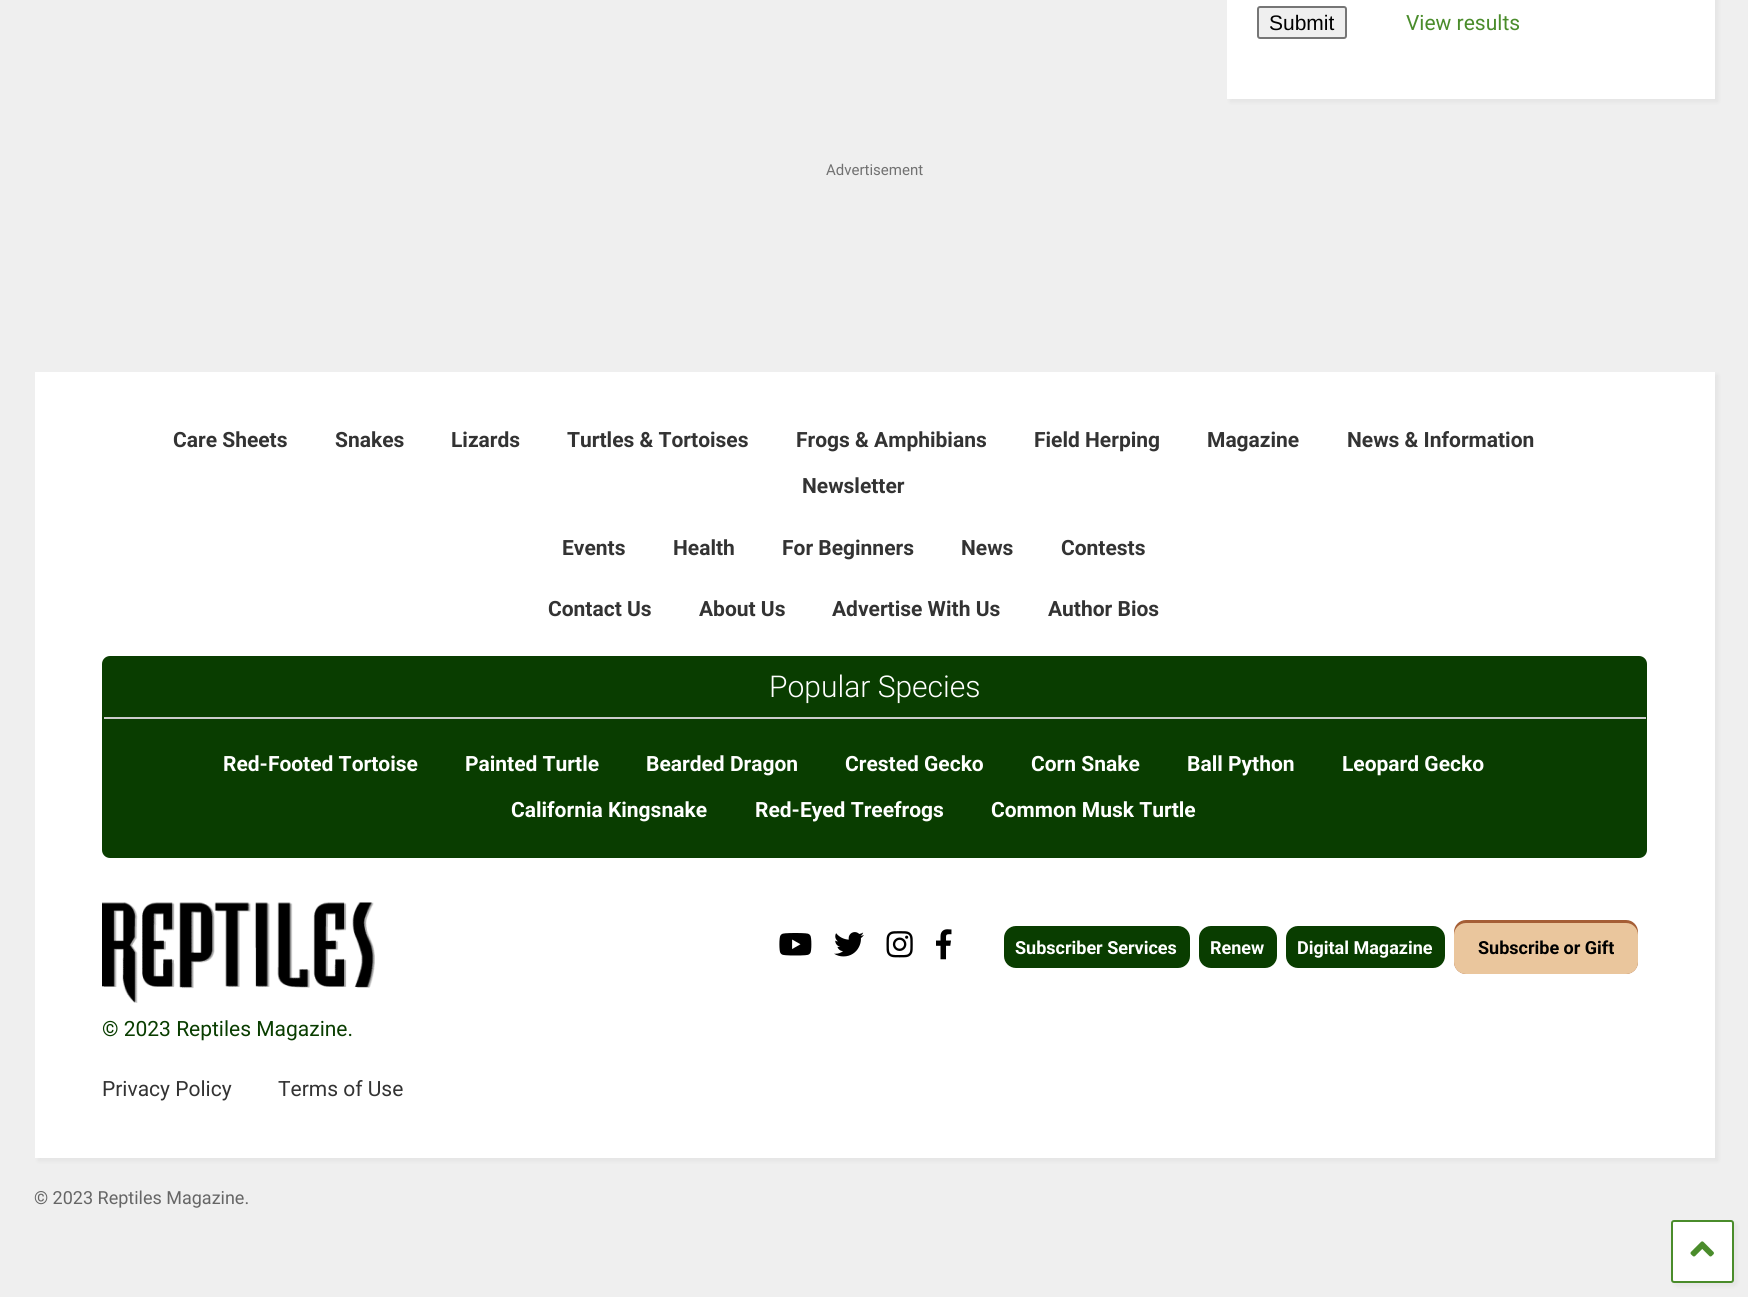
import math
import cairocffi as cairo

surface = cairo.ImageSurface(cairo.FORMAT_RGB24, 1748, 1297)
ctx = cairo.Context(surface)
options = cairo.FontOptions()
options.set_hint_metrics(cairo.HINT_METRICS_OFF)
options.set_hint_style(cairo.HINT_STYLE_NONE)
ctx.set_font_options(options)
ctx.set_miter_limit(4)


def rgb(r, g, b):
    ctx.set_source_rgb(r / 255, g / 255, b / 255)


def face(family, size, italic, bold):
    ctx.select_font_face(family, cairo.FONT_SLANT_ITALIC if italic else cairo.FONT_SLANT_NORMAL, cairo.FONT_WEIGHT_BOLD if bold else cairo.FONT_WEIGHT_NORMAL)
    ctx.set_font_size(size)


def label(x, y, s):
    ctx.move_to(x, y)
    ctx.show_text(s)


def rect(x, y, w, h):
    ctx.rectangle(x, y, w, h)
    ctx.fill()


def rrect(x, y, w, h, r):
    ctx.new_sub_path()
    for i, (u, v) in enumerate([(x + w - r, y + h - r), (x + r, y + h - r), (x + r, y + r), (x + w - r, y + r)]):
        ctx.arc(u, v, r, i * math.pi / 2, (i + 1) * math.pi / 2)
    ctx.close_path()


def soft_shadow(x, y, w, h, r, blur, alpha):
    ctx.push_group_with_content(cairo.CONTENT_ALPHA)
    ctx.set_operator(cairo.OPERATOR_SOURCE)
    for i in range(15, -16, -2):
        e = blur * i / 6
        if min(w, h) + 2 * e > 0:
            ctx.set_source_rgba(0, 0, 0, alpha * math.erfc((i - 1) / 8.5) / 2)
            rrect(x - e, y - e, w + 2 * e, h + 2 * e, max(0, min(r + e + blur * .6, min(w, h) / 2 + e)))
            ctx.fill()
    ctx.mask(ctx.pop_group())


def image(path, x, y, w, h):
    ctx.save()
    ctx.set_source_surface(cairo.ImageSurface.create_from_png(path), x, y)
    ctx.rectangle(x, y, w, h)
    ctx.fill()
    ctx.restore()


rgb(239, 239, 239)
ctx.paint()
rgb(0, 0, 0)
soft_shadow(1230, -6, 488, 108, 0, 2, 0.05)
rgb(255, 255, 255)
rect(1227, 0, 488, 99)
rgb(239, 239, 239)
rrect(1258, 7, 88, 31, 2)
ctx.fill_preserve()
rgb(118, 118, 118)
ctx.stroke()
face('Liberation Sans', 21, 0, 0)
rgb(0, 0, 0)
label(1269, 30, 'Submit')
face('Roboto', 21, 0, 0)
rgb(74, 140, 43)
label(1406, 30, 'View results')
face('Roboto', 15, 0, 0)
rgb(113, 113, 113)
label(826, 175, 'Advertisement')
rgb(0, 0, 0)
soft_shadow(38, 375, 1680, 786, 0, 2, 0.05)
rgb(255, 255, 255)
rect(35, 372, 1680, 786)
face('Roboto', 21, 0, 1)
rgb(51, 51, 51)
label(173, 447, 'Care Sheets')
label(335, 447, 'Snakes')
label(451, 447, 'Lizards')
label(567, 447, 'Turtles & Tortoises')
label(796, 447, 'Frogs & Amphibians')
label(1034, 447, 'Field Herping')
label(1207, 447, 'Magazine')
label(1347, 447, 'News & Information')
label(802, 493, 'Newsletter')
label(562, 555, 'Events')
label(673, 555, 'Health')
label(782, 555, 'For Beginners')
label(961, 555, 'News')
label(1061, 555, 'Contests')
label(548, 616, 'Contact Us')
label(699, 616, 'About Us')
label(832, 616, 'Advertise With Us')
label(1048, 616, 'Author Bios')
rgb(9, 61, 0)
rrect(103, 657, 1543, 200, 7)
ctx.fill_preserve()
ctx.stroke()
rgb(204, 204, 204)
rect(104, 717, 1542, 2)
face('Roboto Light', 30, 0, 0)
rgb(255, 255, 255)
label(769, 697, 'Popular Species')
face('Roboto', 21, 0, 1)
label(223, 771, 'Red-Footed Tortoise')
label(465, 771, 'Painted Turtle')
label(646, 771, 'Bearded Dragon')
label(845, 771, 'Crested Gecko')
label(1031, 771, 'Corn Snake')
label(1187, 771, 'Ball Python')
label(1342, 771, 'Leopard Gecko')
label(511, 817, 'California Kingsnake')
label(755, 817, 'Red-Eyed Treefrogs')
label(991, 817, 'Common Musk Turtle')
image('image0.png', 779, 933, 33, 23)
image('image1.png', 834, 932, 30, 25)
image('image2.png', 886, 931, 27, 27)
image('image3.png', 936, 929, 16, 31)
rgb(9, 61, 0)
rrect(1004, 926, 186, 42, 12)
ctx.fill()
face('Roboto', 18, 0, 1)
rgb(255, 255, 255)
label(1015, 954, 'Subscriber Services')
rgb(9, 61, 0)
rrect(1199, 926, 78, 42, 12)
ctx.fill()
rgb(255, 255, 255)
label(1210, 954, 'Renew')
rgb(9, 61, 0)
rrect(1286, 926, 159, 42, 12)
ctx.fill()
rgb(255, 255, 255)
label(1297, 954, 'Digital Magazine')
rgb(165, 94, 53)
rrect(1454, 920, 184, 54, 12)
ctx.fill()
rgb(234, 198, 157)
rrect(1454, 923, 184, 51, 12)
ctx.fill()
rgb(0, 0, 0)
label(1478, 954, 'Subscribe or Gift')
image('image4.png', 102, 902, 273, 101)
face('Roboto', 21, 0, 0)
rgb(9, 61, 0)
label(102, 1036, '© 2023 Reptiles Magazine.')
rgb(51, 51, 51)
label(102, 1096, 'Privacy Policy')
label(278, 1096, 'Terms of Use')
face('Roboto', 18, 0, 0)
rgb(102, 102, 102)
label(34, 1204, '© 2023 Reptiles Magazine.')
rgb(0, 0, 0)
soft_shadow(1674, 1223, 63, 63, 3, 2, 0.05)
rgb(255, 255, 255)
rrect(1672, 1221, 61, 61, 2)
ctx.fill_preserve()
rgb(74, 140, 43)
ctx.stroke()
image('image5.png', 1690, 1241, 24, 16)
surface.write_to_png('render.png')
